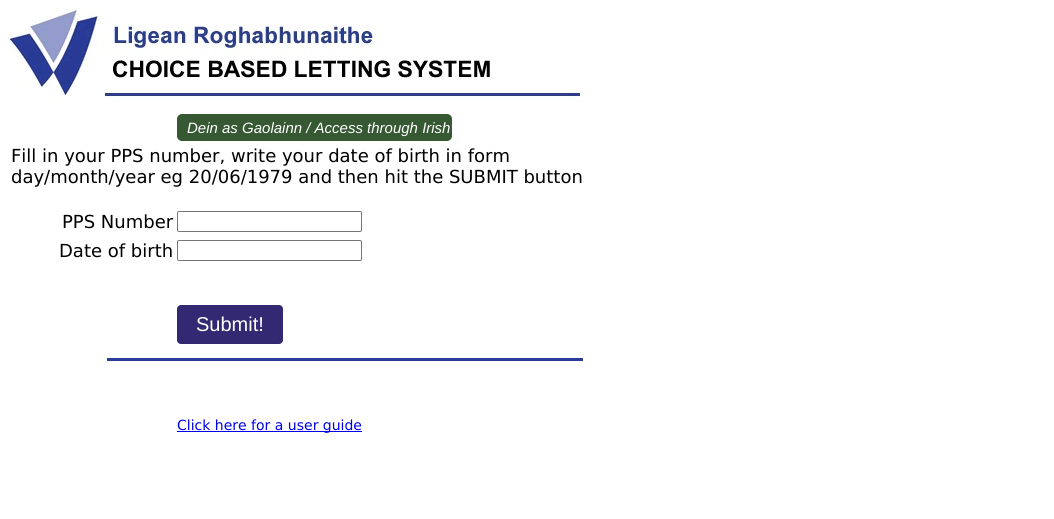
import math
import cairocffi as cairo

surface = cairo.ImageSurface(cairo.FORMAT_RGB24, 1054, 519)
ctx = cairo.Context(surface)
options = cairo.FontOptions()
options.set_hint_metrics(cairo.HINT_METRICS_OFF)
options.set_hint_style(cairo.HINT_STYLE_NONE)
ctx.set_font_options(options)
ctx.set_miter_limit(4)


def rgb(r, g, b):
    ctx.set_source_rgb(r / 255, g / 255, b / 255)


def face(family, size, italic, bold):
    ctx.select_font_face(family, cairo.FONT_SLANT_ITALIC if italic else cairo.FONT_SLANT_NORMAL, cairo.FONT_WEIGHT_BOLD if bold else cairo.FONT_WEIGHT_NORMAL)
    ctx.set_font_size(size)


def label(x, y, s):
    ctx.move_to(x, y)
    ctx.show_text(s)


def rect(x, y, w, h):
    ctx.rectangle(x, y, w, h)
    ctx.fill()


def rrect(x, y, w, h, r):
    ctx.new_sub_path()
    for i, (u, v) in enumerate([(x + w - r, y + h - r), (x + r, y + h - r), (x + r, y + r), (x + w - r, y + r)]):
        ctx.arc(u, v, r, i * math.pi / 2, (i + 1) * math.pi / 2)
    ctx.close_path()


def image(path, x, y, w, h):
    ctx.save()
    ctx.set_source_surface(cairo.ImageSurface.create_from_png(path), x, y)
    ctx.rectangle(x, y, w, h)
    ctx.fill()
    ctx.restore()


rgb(255, 255, 255)
ctx.paint()
image('image0.png', 8, 8, 576, 96)
rgb(54, 88, 50)
rrect(177, 114, 275, 27, 5)
ctx.fill()
face('Liberation Sans', 15, 1, 0)
rgb(255, 255, 255)
label(187, 133, 'Dein as Gaolainn / Access through Irish')
face('DejaVu Sans', 18, 0, 0)
rgb(0, 0, 0)
label(11, 162, 'Fill in your PPS number, write your date of birth in form')
label(11, 183, 'day/month/year eg 20/06/1979 and then hit the SUBMIT button')
label(62, 228, 'PPS Number')
rrect(177.5, 211.5, 184, 20, 1.5)
rgb(118, 118, 118)
ctx.set_line_width(1)
ctx.stroke()
rgb(0, 0, 0)
label(59, 257, 'Date of birth')
rrect(177.5, 240.5, 184, 20, 1.5)
rgb(118, 118, 118)
ctx.stroke()
rgb(50, 41, 114)
rrect(177, 305, 106, 39, 4)
ctx.fill()
face('Liberation Sans', 20, 0, 0)
rgb(255, 255, 255)
label(196, 331, 'Submit!')
rgb(41, 60, 154)
rect(107, 358, 476, 3)
rgb(0, 0, 238)
rect(177, 431, 185, 1)
face('DejaVu Sans', 14, 0, 0)
label(177, 430, 'Click here for a user guide')
surface.write_to_png('render.png')
